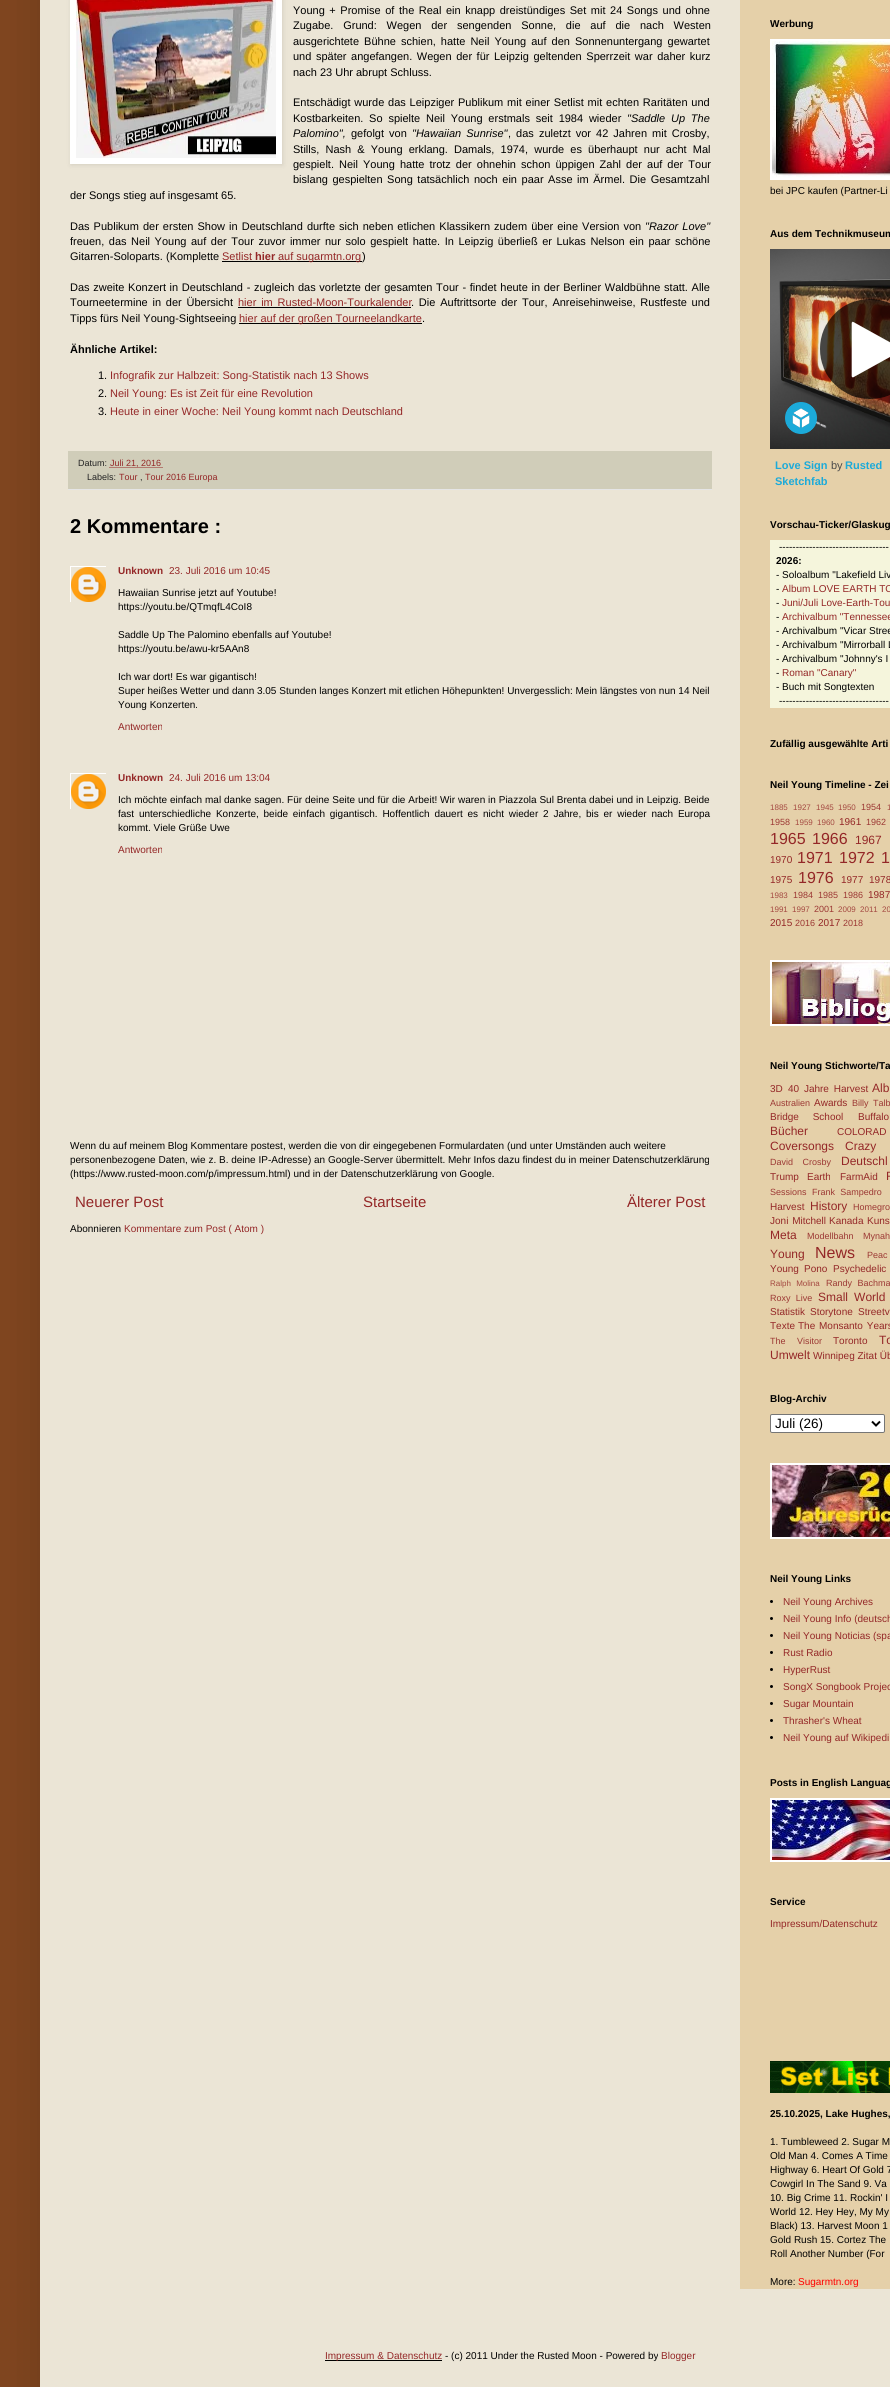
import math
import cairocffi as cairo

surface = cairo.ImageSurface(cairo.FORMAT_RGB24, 890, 2387)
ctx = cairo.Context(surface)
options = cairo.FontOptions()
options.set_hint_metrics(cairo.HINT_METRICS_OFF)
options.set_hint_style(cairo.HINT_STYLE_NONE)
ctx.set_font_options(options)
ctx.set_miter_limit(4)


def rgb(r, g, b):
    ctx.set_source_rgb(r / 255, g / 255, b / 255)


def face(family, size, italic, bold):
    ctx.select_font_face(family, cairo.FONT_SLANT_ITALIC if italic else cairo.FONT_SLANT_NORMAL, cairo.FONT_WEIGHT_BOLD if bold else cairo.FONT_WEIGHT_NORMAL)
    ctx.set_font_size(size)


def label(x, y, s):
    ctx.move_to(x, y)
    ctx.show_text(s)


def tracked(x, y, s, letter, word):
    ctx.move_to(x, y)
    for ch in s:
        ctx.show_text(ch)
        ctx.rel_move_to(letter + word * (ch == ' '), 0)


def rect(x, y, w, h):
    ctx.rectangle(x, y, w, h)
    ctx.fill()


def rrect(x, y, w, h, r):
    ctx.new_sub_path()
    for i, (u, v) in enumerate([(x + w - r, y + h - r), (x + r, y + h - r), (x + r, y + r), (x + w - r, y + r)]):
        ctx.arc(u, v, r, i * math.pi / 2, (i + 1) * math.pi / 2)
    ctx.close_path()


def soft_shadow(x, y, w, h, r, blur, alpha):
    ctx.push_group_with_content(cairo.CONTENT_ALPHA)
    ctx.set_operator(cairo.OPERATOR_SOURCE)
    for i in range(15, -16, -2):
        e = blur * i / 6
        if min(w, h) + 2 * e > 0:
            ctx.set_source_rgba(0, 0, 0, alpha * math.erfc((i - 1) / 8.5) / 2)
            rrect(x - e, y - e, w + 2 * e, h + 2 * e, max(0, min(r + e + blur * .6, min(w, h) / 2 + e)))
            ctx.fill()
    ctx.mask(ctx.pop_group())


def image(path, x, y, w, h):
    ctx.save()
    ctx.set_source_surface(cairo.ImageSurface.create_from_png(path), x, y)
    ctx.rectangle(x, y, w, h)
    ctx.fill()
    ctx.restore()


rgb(127, 69, 31)
ctx.paint()
rgb(0, 0, 0)
soft_shadow(40, -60, 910, 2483, 0, 20, 0.15)
rgb(235, 229, 214)
rect(40, 0, 850, 2387)
rgb(0, 0, 0)
soft_shadow(71, -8, 212, 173, 0, 2.5, 0.1)
rgb(255, 255, 255)
rect(70, 0, 212, 164)
image('image0.png', 76, 0, 200, 158)
face('Liberation Sans', 11, 0, 0)
rgb(0, 0, 0)
tracked(293, 14, 'Young + Promise of the Real ein knapp dreistündiges Set mit 24 Songs und ohne', 0, 1.5)
tracked(293, 29, 'Zugabe. Grund: Wegen der sengenden Sonne, die auf die nach Westen', 0, 6.75)
tracked(293, 45, 'ausgerichtete Bühne schien, hatte Neil Young auf den Sonnenuntergang gewartet', 0, 2)
tracked(293, 60, 'und später angefangen. Wegen der für Leipzig geltenden Sperrzeit war daher kurz', 0, 1.5)
label(293, 76, 'nach 23 Uhr abrupt Schluss.')
tracked(293, 106, 'Entschädigt wurde das Leipziger Publikum mit einer Setlist mit echten Raritäten und', 0, 0.75)
tracked(293, 122, 'Kostbarkeiten. So spielte Neil Young erstmals seit 1984 wieder', 0, 2.75)
face('Liberation Sans', 11, 1, 0)
tracked(627, 122, '"Saddle Up The', 0, 2.75)
label(293, 137, 'Palomino",')
face('Liberation Sans', 11, 0, 0)
tracked(351, 137, 'gefolgt von', 0, 2)
face('Liberation Sans', 11, 1, 0)
tracked(412, 137, '"Hawaiian Sunrise"', 0, 2)
face('Liberation Sans', 11, 0, 0)
tracked(508, 137, ', das zuletzt vor 42 Jahren mit Crosby,', 0, 2)
tracked(293, 153, 'Stills, Nash & Young erklang. Damals, 1974, wurde es überhaupt nur acht Mal', 0, 3.1)
tracked(293, 168, 'gespielt. Neil Young hatte trotz der ohnehin schon üppigen Zahl der auf der Tour', 0, 2)
tracked(293, 183, 'bislang gespielten Song tatsächlich noch ein paar Asse im Ärmel. Die Gesamtzahl', 0, 1.5)
label(70, 199, 'der Songs stieg auf insgesamt 65.')
tracked(70, 230, 'Das Publikum der ersten Show in Deutschland durfte sich neben etlichen Klassikern zudem über eine Version von', 0, 1)
face('Liberation Sans', 11, 1, 0)
tracked(645, 230, '"Razor Love"', 0, 1)
face('Liberation Sans', 11, 0, 0)
tracked(70, 245, 'freuen, das Neil Young auf der Tour zuvor immer nur solo gespielt hatte. In Leipzig überließ er Lukas Nelson ein paar schöne', 0, 1.5)
label(70, 260, 'Gitarren-Soloparts. (Komplette')
rgb(148, 39, 39)
label(222, 260, 'Setlist')
face('Liberation Sans', 11, 0, 1)
label(255, 260, 'hier')
rgb(0, 0, 0)
rect(222, 261, 140, 1)
face('Liberation Sans', 11, 0, 0)
rgb(148, 39, 39)
label(278, 260, 'auf sugarmtn.org')
rgb(0, 0, 0)
label(362, 260, ')')
tracked(70, 291, 'Das zweite Konzert in Deutschland - zugleich das vorletzte der gesamten Tour - findet heute in der Berliner Waldbühne statt. Alle', 0, 0.6)
tracked(70, 306, 'Tourneetermine in der Übersicht', 0, 1.75)
rgb(148, 39, 39)
tracked(238, 306, 'hier im Rusted-Moon-Tourkalender', 0, 1.75)
rgb(0, 0, 0)
rect(238, 307, 173, 1)
tracked(411, 306, '. Die Auftrittsorte der Tour, Anreisehinweise, Rustfeste und', 0, 1.75)
label(70, 322, 'Tipps fürs Neil Young-Sightseeing')
rect(239, 323, 183, 1)
rgb(148, 39, 39)
label(239, 322, 'hier auf der großen Tourneelandkarte')
rgb(0, 0, 0)
label(422, 322, '.')
face('Liberation Sans', 11, 0, 1)
label(70, 353, 'Ähnliche Artikel:')
face('Liberation Sans', 11, 0, 0)
label(98, 379, '1.')
rgb(148, 39, 39)
label(110, 379, 'Infografik zur Halbzeit: Song-Statistik nach 13 Shows')
rgb(0, 0, 0)
label(98, 397, '2.')
rgb(148, 39, 39)
label(110, 397, 'Neil Young: Es ist Zeit für eine Revolution')
rgb(0, 0, 0)
label(98, 415, '3.')
rgb(148, 39, 39)
label(110, 415, 'Heute in einer Woche: Neil Young kommt nach Deutschland')
rgb(208, 205, 185)
rect(68, 451, 644, 38)
rgb(229, 229, 229)
rect(68, 489, 644, 1)
face('Liberation Sans', 9, 0, 0)
rgb(34, 34, 34)
label(78, 466, 'Datum:')
ctx.new_path()
ctx.move_to(109.5, 467.5)
ctx.line_to(163, 467.5)
rgb(148, 39, 39)
ctx.set_line_width(1)
ctx.set_dash([1, 1])
ctx.stroke()
label(110, 466, 'Juli 21, 2016')
rgb(34, 34, 34)
label(87, 480, 'Labels:')
rgb(148, 39, 39)
label(119, 480, 'Tour')
rgb(34, 34, 34)
label(140, 480, ',')
rgb(148, 39, 39)
label(145, 480, 'Tour 2016 Europa')
face('Liberation Sans', 20, 0, 1)
rgb(0, 0, 0)
label(70, 533, '2 Kommentare :')
ctx.save()
ctx.rectangle(70, 566, 36, 36)
ctx.clip()
ctx.rectangle(70.5, 566.5, 36, 36)
rgb(255, 255, 255)
ctx.set_dash([])
ctx.stroke()
ctx.restore()
image('image1.png', 71, 567, 35, 35)
face('Liberation Sans', 10, 0, 1)
rgb(148, 39, 39)
label(118, 574, 'Unknown')
face('Liberation Sans', 10, 0, 0)
label(169, 574, '23. Juli 2016 um 10:45')
rgb(0, 0, 0)
label(118, 596, 'Hawaiian Sunrise jetzt auf Youtube!')
label(118, 610, 'https://youtu.be/QTmqfL4CoI8')
label(118, 638, 'Saddle Up The Palomino ebenfalls auf Youtube!')
label(118, 652, 'https://youtu.be/awu-kr5AAn8')
label(118, 680, 'Ich war dort! Es war gigantisch!')
label(118, 694, 'Super heißes Wetter und dann 3.05 Stunden langes Konzert mit etlichen Höhepunkten! Unvergesslich: Mein längstes von nun 14 Neil')
label(118, 708, 'Young Konzerten.')
rgb(148, 39, 39)
label(118, 730, 'Antworten')
ctx.save()
ctx.rectangle(70, 773, 36, 36)
ctx.clip()
ctx.rectangle(70.5, 773.5, 36, 36)
rgb(255, 255, 255)
ctx.set_dash([])
ctx.stroke()
ctx.restore()
image('image1.png', 71, 774, 35, 35)
face('Liberation Sans', 10, 0, 1)
label(118, 781, 'Unknown')
face('Liberation Sans', 10, 0, 0)
label(169, 781, '24. Juli 2016 um 13:04')
rgb(0, 0, 0)
tracked(118, 803, 'Ich möchte einfach mal danke sagen. Für deine Seite und für die Arbeit! Wir waren in Piazzola Sul Brenta dabei und in Leipzig. Beide', 0, 0.1)
tracked(118, 817, 'fast unterschiedliche Konzerte, beide einfach gigantisch. Hoffentlich dauert es nicht wieder 2 Jahre, bis er wieder nach Europa', 0, 2)
label(118, 831, 'kommt. Viele Grüße Uwe')
rgb(148, 39, 39)
label(118, 853, 'Antworten')
rgb(0, 0, 0)
label(70, 1149, 'Wenn du auf meinem Blog Kommentare postest, werden die von dir eingegebenen Formulardaten (und unter Umständen auch weitere')
label(70, 1163, 'personenbezogene Daten, wie z. B. deine IP-Adresse) an Google-Server übermittelt. Mehr Infos dazu findest du in meiner Datenschutzerklärung')
label(70, 1177, '(https://www.rusted-moon.com/p/impressum.html) und in der Datenschutzerklärung von Google.')
face('Liberation Sans', 15, 0, 0)
rgb(148, 39, 39)
label(75, 1207, 'Neuerer Post')
label(363, 1207, 'Startseite')
label(627, 1207, 'Älterer Post')
face('Liberation Sans', 10, 0, 0)
rgb(0, 0, 0)
label(70, 1232, 'Abonnieren')
rgb(148, 39, 39)
label(124, 1232, 'Kommentare zum Post ( Atom )')
rgb(229, 208, 169)
rect(740, 0, 150, 2289)
face('Liberation Sans', 10, 0, 1)
rgb(0, 0, 0)
label(770, 27, 'Werbung')
rgb(255, 255, 255)
rect(770, 39, 120, 141)
image('image2.png', 772, 41, 118, 137)
face('Liberation Sans', 10, 0, 0)
rgb(0, 0, 0)
label(770, 194, 'bei JPC kaufen (Partner-Li')
face('Liberation Sans', 10, 0, 1)
label(770, 237, 'Aus dem Technikmuseum')
image('image3.png', 770, 249, 120, 200)
face('Liberation Sans', 11, 0, 1)
rgb(28, 170, 217)
label(775, 469, 'Love Sign')
face('Liberation Sans', 11, 0, 0)
rgb(74, 74, 74)
label(831, 469, 'by')
face('Liberation Sans', 11, 0, 1)
rgb(28, 170, 217)
label(845, 469, 'Rusted')
label(775, 485, 'Sketchfab')
face('Liberation Sans', 10, 0, 1)
rgb(0, 0, 0)
label(770, 528, 'Vorschau-Ticker/Glaskug')
rgb(245, 245, 220)
rect(770, 540, 120, 168)
face('Liberation Sans', 10, 0, 0)
rgb(0, 0, 0)
label(779, 550, '---------------------------------')
face('Liberation Sans', 10, 0, 1)
label(776, 564, '2026:')
face('Liberation Sans', 10, 0, 0)
label(776, 578, '- Soloalbum "Lakefield Liv')
label(776, 592, '-')
rgb(148, 39, 39)
label(782, 592, 'Album LOVE EARTH TO')
rgb(0, 0, 0)
label(776, 606, '-')
rgb(148, 39, 39)
label(782, 606, 'Juni/Juli Love-Earth-Tou')
rgb(0, 0, 0)
label(776, 620, '-')
rgb(148, 39, 39)
label(782, 620, 'Archivalbum "Tennessee')
rgb(0, 0, 0)
label(776, 634, '- Archivalbum "Vicar Stree')
label(776, 648, '- Archivalbum "Mirrorball L')
label(776, 662, '- Archivalbum "Johnny\'s I')
label(776, 676, '-')
rgb(148, 39, 39)
label(782, 676, 'Roman "Canary"')
rgb(0, 0, 0)
label(776, 690, '- Buch mit Songtexten')
label(779, 704, '---------------------------------')
face('Liberation Sans', 10, 0, 1)
label(770, 747, 'Zufällig ausgewählte Arti')
label(770, 788, 'Neil Young Timeline - Zei')
face('Liberation Sans', 8, 0, 0)
rgb(164, 73, 65)
label(770, 810, '1885')
label(793, 810, '1927')
label(816, 810, '1945')
label(838, 810, '1950')
face('Liberation Sans', 9, 0, 0)
rgb(156, 56, 52)
label(861, 810, '1954')
face('Liberation Sans', 8, 0, 0)
rgb(164, 73, 65)
label(887, 810, '1')
face('Liberation Sans', 9, 0, 0)
rgb(156, 56, 52)
label(770, 825, '1958')
face('Liberation Sans', 8, 0, 0)
rgb(164, 73, 65)
label(795, 825, '1959')
label(817, 825, '1960')
face('Liberation Sans', 10, 0, 0)
rgb(148, 39, 39)
label(839, 825, '1961')
face('Liberation Sans', 9, 0, 0)
rgb(156, 56, 52)
label(866, 825, '1962')
face('Liberation Sans', 16, 0, 0)
rgb(148, 39, 39)
label(770, 844, '1965')
label(812, 844, '1966')
face('Liberation Sans', 12, 0, 0)
label(855, 844, '1967')
face('Liberation Sans', 10, 0, 0)
label(770, 863, '1970')
face('Liberation Sans', 16, 0, 0)
label(797, 863, '1971')
label(839, 863, '1972')
label(881, 863, '1')
face('Liberation Sans', 10, 0, 0)
label(770, 883, '1975')
face('Liberation Sans', 16, 0, 0)
label(798, 883, '1976')
face('Liberation Sans', 10, 0, 0)
label(841, 883, '1977')
label(869, 883, '1978')
face('Liberation Sans', 8, 0, 0)
rgb(164, 73, 65)
label(770, 898, '1983')
face('Liberation Sans', 9, 0, 0)
rgb(156, 56, 52)
label(793, 898, '1984')
label(818, 898, '1985')
label(843, 898, '1986')
face('Liberation Sans', 10, 0, 0)
rgb(148, 39, 39)
label(868, 898, '1987')
face('Liberation Sans', 8, 0, 0)
rgb(164, 73, 65)
label(770, 912, '1991')
label(792, 912, '1997')
face('Liberation Sans', 9, 0, 0)
rgb(156, 56, 52)
label(814, 912, '2001')
face('Liberation Sans', 8, 0, 0)
rgb(164, 73, 65)
label(838, 912, '2009')
label(860, 912, '2011')
label(882, 912, '20')
face('Liberation Sans', 10, 0, 0)
rgb(148, 39, 39)
label(770, 926, '2015')
face('Liberation Sans', 9, 0, 0)
rgb(156, 56, 52)
label(795, 926, '2016')
face('Liberation Sans', 10, 0, 0)
rgb(148, 39, 39)
label(818, 926, '2017')
face('Liberation Sans', 9, 0, 0)
rgb(156, 56, 52)
label(843, 926, '2018')
rgb(255, 255, 255)
rect(770, 960, 120, 66)
image('image4.png', 772, 962, 118, 62)
face('Liberation Sans', 10, 0, 1)
rgb(0, 0, 0)
label(770, 1069, 'Neil Young Stichworte/Ta')
face('Liberation Sans', 10, 0, 0)
rgb(148, 39, 39)
label(770, 1092, '3D')
tracked(788, 1092, '40 Jahre Harvest', 0, 2)
face('Liberation Sans', 12, 0, 0)
label(872, 1092, 'Alb')
face('Liberation Sans', 9, 0, 0)
rgb(156, 56, 52)
label(770, 1106, 'Australien')
face('Liberation Sans', 10, 0, 0)
rgb(148, 39, 39)
label(814, 1106, 'Awards')
face('Liberation Sans', 9, 0, 0)
rgb(156, 56, 52)
tracked(852, 1106, 'Billy Talb', 0, 2)
face('Liberation Sans', 10, 0, 0)
rgb(148, 39, 39)
tracked(770, 1120, 'Bridge School', 0, 11)
tracked(858, 1120, 'Buffalo', 0, 11)
face('Liberation Sans', 12, 0, 0)
label(770, 1135, 'Bücher')
face('Liberation Sans', 10, 0, 0)
label(837, 1135, 'COLORAD')
face('Liberation Sans', 12, 0, 0)
label(770, 1150, 'Coversongs')
tracked(845, 1150, 'Crazy', 0, 8)
face('Liberation Sans', 9, 0, 0)
rgb(156, 56, 52)
tracked(770, 1165, 'David Crosby', 0, 7)
face('Liberation Sans', 12, 0, 0)
rgb(148, 39, 39)
label(841, 1165, 'Deutschl')
face('Liberation Sans', 10, 0, 0)
label(770, 1180, 'Trump')
label(807, 1180, 'Earth')
label(840, 1180, 'FarmAid')
face('Liberation Sans', 12, 0, 0)
label(886, 1180, 'F')
face('Liberation Sans', 9, 0, 0)
rgb(156, 56, 52)
label(770, 1195, 'Sessions')
tracked(812, 1195, 'Frank Sampedro', 0, 2.75)
face('Liberation Sans', 10, 0, 0)
rgb(148, 39, 39)
label(770, 1210, 'Harvest')
face('Liberation Sans', 12, 0, 0)
label(810, 1210, 'History')
face('Liberation Sans', 9, 0, 0)
rgb(156, 56, 52)
label(853, 1210, 'Homegro')
face('Liberation Sans', 10, 0, 0)
rgb(148, 39, 39)
tracked(770, 1224, 'Joni Mitchell', 0, 1)
label(829, 1224, 'Kanada')
label(867, 1224, 'Kuns')
face('Liberation Sans', 12, 0, 0)
label(770, 1239, 'Meta')
face('Liberation Sans', 9, 0, 0)
rgb(156, 56, 52)
label(807, 1239, 'Modellbahn')
tracked(863, 1239, 'Mynah', 0, 7)
face('Liberation Sans', 12, 0, 0)
rgb(148, 39, 39)
label(770, 1258, 'Young')
face('Liberation Sans', 16, 0, 0)
label(815, 1258, 'News')
face('Liberation Sans', 9, 0, 0)
rgb(156, 56, 52)
tracked(867, 1258, 'Peac', 0, 7)
face('Liberation Sans', 10, 0, 0)
rgb(148, 39, 39)
label(770, 1272, 'Young')
label(804, 1272, 'Pono')
tracked(833, 1272, 'Psychedelic', 0, 2)
face('Liberation Sans', 8, 0, 0)
rgb(164, 73, 65)
tracked(770, 1286, 'Ralph Molina', 0, 3)
face('Liberation Sans', 9, 0, 0)
rgb(156, 56, 52)
tracked(826, 1286, 'Randy Bachma', 0, 3)
tracked(770, 1301, 'Roxy Live', 0, 2.75)
face('Liberation Sans', 12, 0, 0)
rgb(148, 39, 39)
tracked(818, 1301, 'Small World', 0, 2.75)
face('Liberation Sans', 10, 0, 0)
label(770, 1315, 'Statistik')
label(810, 1315, 'Storytone')
label(858, 1315, 'Streetv')
label(770, 1329, 'Texte')
tracked(798, 1329, 'The Monsanto Years', 0, 1)
face('Liberation Sans', 9, 0, 0)
rgb(156, 56, 52)
tracked(770, 1344, 'The Visitor', 0, 9)
face('Liberation Sans', 10, 0, 0)
rgb(148, 39, 39)
label(833, 1344, 'Toronto')
face('Liberation Sans', 12, 0, 0)
label(879, 1344, 'To')
label(770, 1359, 'Umwelt')
face('Liberation Sans', 10, 0, 0)
label(813, 1359, 'Winnipeg Zitat Üb')
face('Liberation Sans', 10, 0, 1)
rgb(0, 0, 0)
label(770, 1402, 'Blog-Archiv')
rgb(255, 255, 255)
rrect(770.5, 1414.5, 114, 18, 1.5)
ctx.fill_preserve()
rgb(118, 118, 118)
ctx.set_dash([])
ctx.stroke()
ctx.new_path()
ctx.move_to(872, 1421.5)
ctx.line_to(876, 1425.5)
ctx.line_to(880, 1421.5)
rgb(0, 0, 0)
ctx.set_line_width(2)
ctx.stroke()
face('Liberation Sans', 13.5, 0, 0)
label(775, 1428, 'Juli (26)')
rgb(255, 255, 255)
rect(770, 1463, 120, 76)
image('image5.png', 772, 1465, 118, 72)
face('Liberation Sans', 10, 0, 1)
rgb(0, 0, 0)
label(770, 1582, 'Neil Young Links')
ctx.new_path()
ctx.arc(771.5, 1601.5, 1.5, 0, 2 * math.pi)
ctx.fill()
face('Liberation Sans', 10, 0, 0)
rgb(148, 39, 39)
label(783, 1605, 'Neil Young Archives')
rgb(0, 0, 0)
ctx.new_path()
ctx.arc(771.5, 1618.5, 1.5, 0, 2 * math.pi)
ctx.fill()
rgb(148, 39, 39)
label(783, 1622, 'Neil Young Info (deutsch')
rgb(0, 0, 0)
ctx.new_path()
ctx.arc(771.5, 1635.5, 1.5, 0, 2 * math.pi)
ctx.fill()
rgb(148, 39, 39)
label(783, 1639, 'Neil Young Noticias (spa')
rgb(0, 0, 0)
ctx.new_path()
ctx.arc(771.5, 1652.5, 1.5, 0, 2 * math.pi)
ctx.fill()
rgb(148, 39, 39)
label(783, 1656, 'Rust Radio')
rgb(0, 0, 0)
ctx.new_path()
ctx.arc(771.5, 1669.5, 1.5, 0, 2 * math.pi)
ctx.fill()
rgb(148, 39, 39)
label(783, 1673, 'HyperRust')
rgb(0, 0, 0)
ctx.new_path()
ctx.arc(771.5, 1686.5, 1.5, 0, 2 * math.pi)
ctx.fill()
rgb(148, 39, 39)
label(783, 1690, 'SongX Songbook Projec')
rgb(0, 0, 0)
ctx.new_path()
ctx.arc(771.5, 1703.5, 1.5, 0, 2 * math.pi)
ctx.fill()
rgb(148, 39, 39)
label(783, 1707, 'Sugar Mountain')
rgb(0, 0, 0)
ctx.new_path()
ctx.arc(771.5, 1720.5, 1.5, 0, 2 * math.pi)
ctx.fill()
rgb(148, 39, 39)
label(783, 1724, 'Thrasher\'s Wheat')
rgb(0, 0, 0)
ctx.new_path()
ctx.arc(771.5, 1737.5, 1.5, 0, 2 * math.pi)
ctx.fill()
rgb(148, 39, 39)
label(783, 1741, 'Neil Young auf Wikipedi')
face('Liberation Sans', 10, 0, 1)
rgb(0, 0, 0)
label(770, 1786, 'Posts in English Languag')
rgb(255, 255, 255)
rect(770, 1798, 120, 64)
image('image6.png', 772, 1800, 118, 60)
rgb(0, 0, 0)
label(770, 1905, 'Service')
face('Liberation Sans', 10, 0, 0)
rgb(148, 39, 39)
label(770, 1927, 'Impressum/Datenschutz')
image('image7.png', 770, 2061, 120, 32)
face('Liberation Sans', 10, 0, 1)
rgb(0, 0, 0)
label(770, 2117, '25.10.2025, Lake Hughes,')
face('Liberation Sans', 10, 0, 0)
label(770, 2145, '1. Tumbleweed 2. Sugar M')
label(770, 2159, 'Old Man 4. Comes A Time')
label(770, 2173, 'Highway 6. Heart Of Gold 7')
label(770, 2187, 'Cowgirl In The Sand 9. Va')
label(770, 2201, '10. Big Crime 11. Rockin\' I')
label(770, 2215, 'World 12. Hey Hey, My My')
label(770, 2229, 'Black) 13. Harvest Moon 1')
label(770, 2243, 'Gold Rush 15. Cortez The')
label(770, 2257, 'Roll Another Number (For')
label(770, 2285, 'More:')
rgb(255, 0, 0)
label(798, 2285, 'Sugarmtn.org')
rgb(0, 0, 0)
rect(325, 2360, 117, 1)
rgb(148, 39, 39)
label(325, 2359, 'Impressum & Datenschutz')
rgb(0, 0, 0)
label(445, 2359, '- (c) 2011 Under the Rusted Moon - Powered by')
rgb(148, 39, 39)
label(661, 2359, 'Blogger')
surface.write_to_png('render.png')
